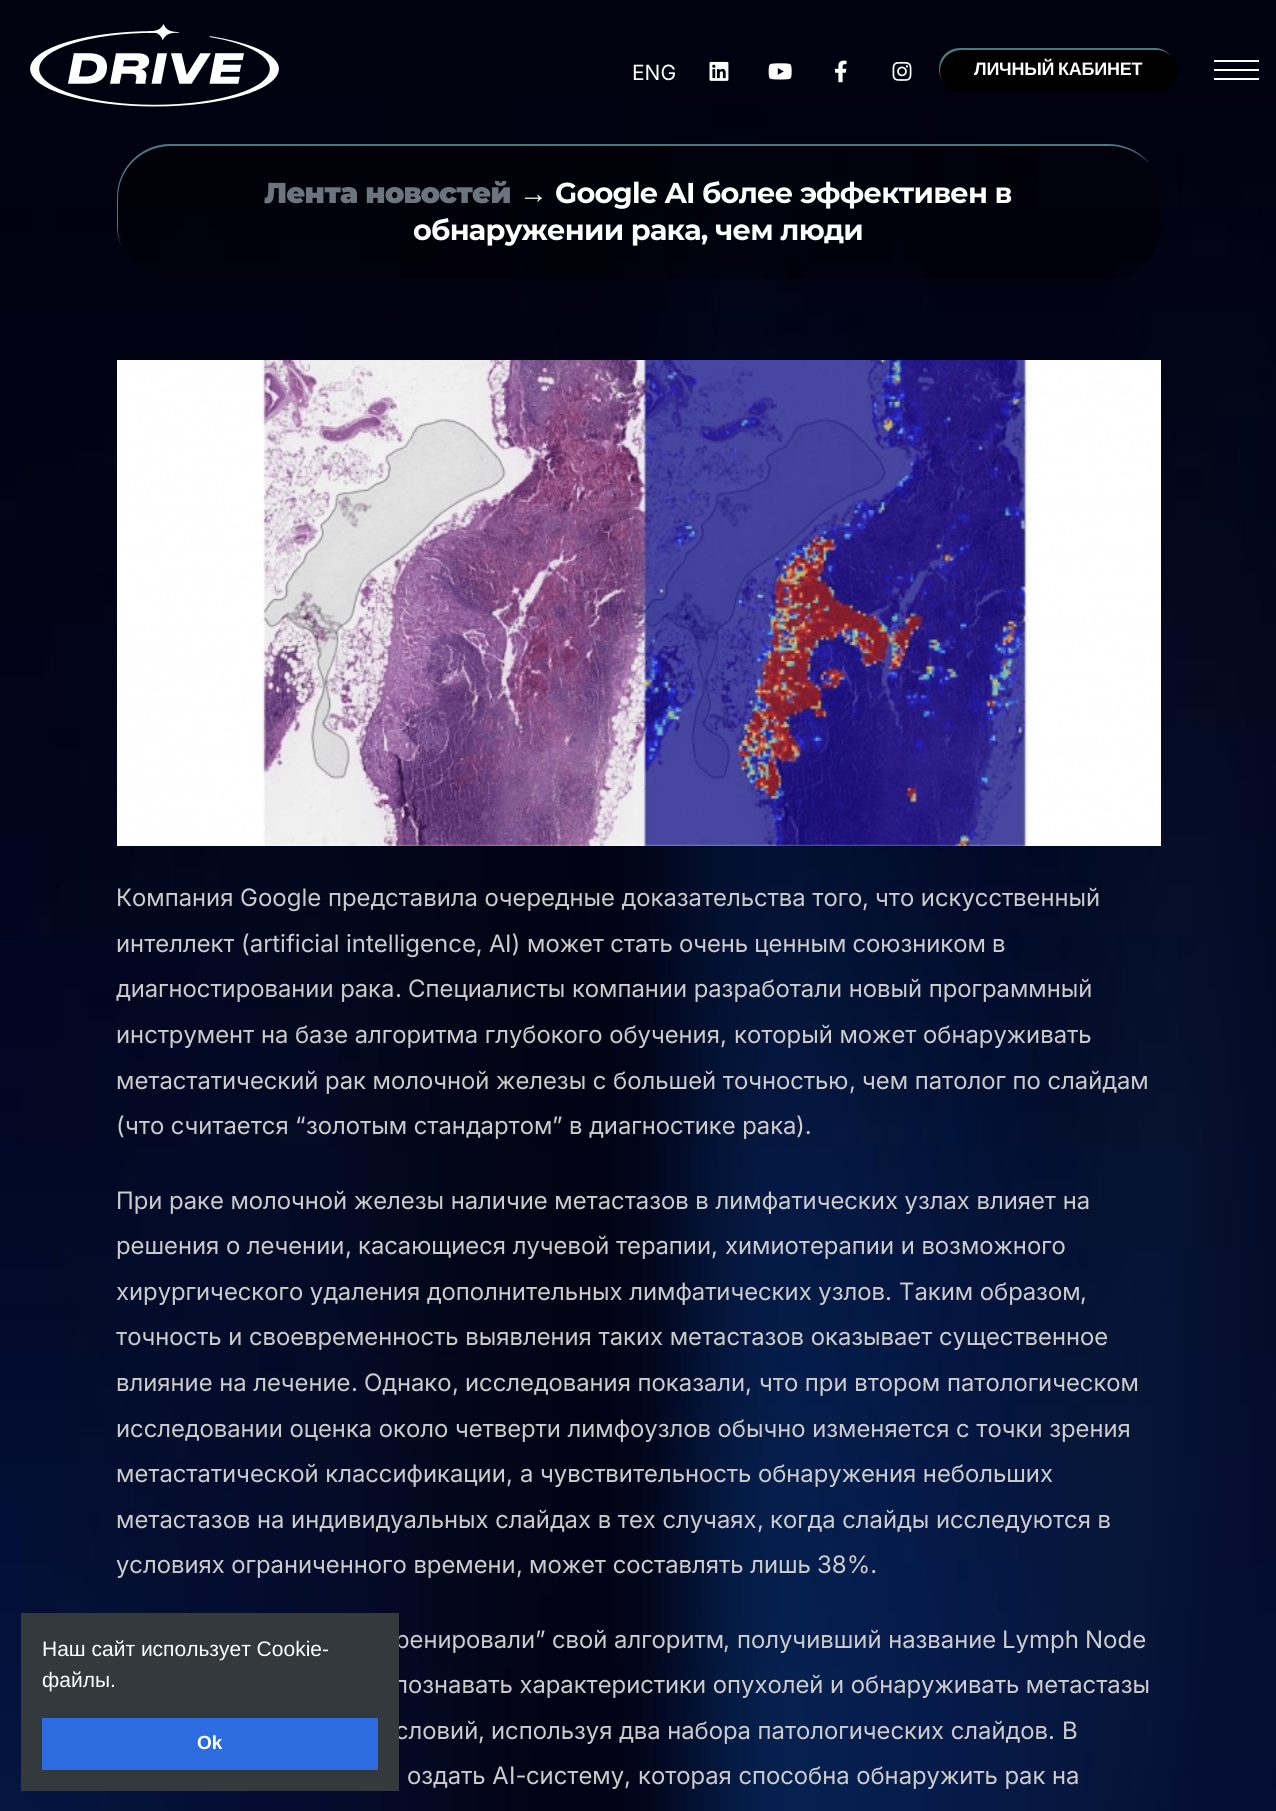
import math
import cairocffi as cairo

surface = cairo.ImageSurface(cairo.FORMAT_RGB24, 1276, 1811)
ctx = cairo.Context(surface)
options = cairo.FontOptions()
options.set_hint_metrics(cairo.HINT_METRICS_OFF)
options.set_hint_style(cairo.HINT_STYLE_NONE)
ctx.set_font_options(options)
ctx.set_miter_limit(4)


def rgb(r, g, b):
    ctx.set_source_rgb(r / 255, g / 255, b / 255)


def face(family, size, italic, bold):
    ctx.select_font_face(family, cairo.FONT_SLANT_ITALIC if italic else cairo.FONT_SLANT_NORMAL, cairo.FONT_WEIGHT_BOLD if bold else cairo.FONT_WEIGHT_NORMAL)
    ctx.set_font_size(size)


def label(x, y, s):
    ctx.move_to(x, y)
    ctx.show_text(s)


def tracked(x, y, s, letter, word):
    ctx.move_to(x, y)
    for ch in s:
        ctx.show_text(ch)
        ctx.rel_move_to(letter + word * (ch == ' '), 0)


def rect(x, y, w, h):
    ctx.rectangle(x, y, w, h)
    ctx.fill()


def rrect(x, y, w, h, r):
    ctx.new_sub_path()
    for i, (u, v) in enumerate([(x + w - r, y + h - r), (x + r, y + h - r), (x + r, y + r), (x + w - r, y + r)]):
        ctx.arc(u, v, r, i * math.pi / 2, (i + 1) * math.pi / 2)
    ctx.close_path()


def image(path, x, y, w, h):
    ctx.save()
    ctx.set_source_surface(cairo.ImageSurface.create_from_png(path), x, y)
    ctx.rectangle(x, y, w, h)
    ctx.fill()
    ctx.restore()


rgb(255, 255, 255)
ctx.paint()
image('image0.png', 0, 0, 1276, 1811)
image('image1.png', 30, 24, 249, 83)
face('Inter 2', 21, 0, 0)
rgb(255, 255, 255)
label(632, 80, 'ENG')
image('image2.png', 709, 61, 20, 20)
image('image3.png', 768, 63, 24, 17)
image('image4.png', 834, 60, 13, 23)
image('image5.png', 892, 61, 20, 20)
rgb(0, 0, 0)
rrect(938, 47, 240, 45, 22.5)
ctx.fill()
rgb(76, 120, 127)
ctx.new_path()
ctx.move_to(962, 50)
ctx.line_to(1156, 50)
ctx.curve_to(1162, 50, 1167, 52, 1171, 56)
ctx.curve_to(1167, 51, 1161, 48, 1155, 48)
ctx.line_to(960, 48)
ctx.curve_to(948, 48, 939, 57, 939, 69)
ctx.curve_to(939, 74, 941, 79, 944, 83)
ctx.curve_to(934, 69, 944, 50, 962, 50)
ctx.close_path()
ctx.fill()
face('Liberation Sans', 18, 0, 1)
rgb(255, 255, 255)
tracked(974, 75, 'ЛИЧНЫЙ КАБИНЕТ', -0.25, -1)
rect(1214, 60, 45, 2)
rect(1214, 69, 45, 2)
rect(1214, 78, 45, 2)
ctx.set_source_rgba(0, 0, 0, 0.4)
rrect(117, 144, 1044, 135, 53)
ctx.fill()
ctx.set_source_rgba(0.592, 0.937, 0.992, 0.5)
ctx.new_path()
ctx.move_to(171, 146)
ctx.line_to(1110, 146)
ctx.curve_to(1125, 146, 1139, 153, 1149, 163)
ctx.curve_to(1139, 151, 1124, 144, 1108, 144)
ctx.line_to(170, 144)
ctx.curve_to(141, 144, 117, 168, 117, 197)
ctx.line_to(117, 226)
ctx.curve_to(117, 237, 121, 248, 127, 256)
ctx.curve_to(121, 248, 118, 239, 118, 228)
ctx.line_to(118, 198)
ctx.curve_to(118, 169, 142, 146, 171, 146)
ctx.close_path()
ctx.fill()
face('Montserrat Black', 28.75, 0, 0)
rgb(108, 117, 125)
tracked(264, 203, 'Лента новостей', -0.75, 0)
face('Liberation Sans', 28.75, 0, 1)
rgb(255, 255, 255)
tracked(519, 203, '→', -0.75, 0)
face('Montserrat', 28.75, 0, 1)
tracked(555, 203, 'Google AI более эффективен в', -0.75, 0)
tracked(413, 240, 'обнаружении рака, чем люди', -0.75, 0)
image('image6.png', 117, 360, 1044, 486)
face('Inter', 24, 0, 0)
rgb(204, 204, 204)
label(116, 906, 'Компания')
face('Inter 2', 24, 0, 0)
label(240, 906, 'Google')
face('Inter', 24, 0, 0)
label(328, 906, 'представила очередные доказательства того')
face('Inter 2', 24, 0, 0)
label(862, 906, ',')
face('Inter', 24, 0, 0)
label(875, 906, 'что искусственный')
label(116, 952, 'интеллект')
face('Inter 2', 24, 0, 0)
label(241, 952, '(artificial')
label(346, 952, 'intelligence,')
face('Inter', 24, 0, 0)
label(489, 952, 'A')
face('Inter 2', 24, 0, 0)
label(505, 952, 'I)')
face('Inter', 24, 0, 0)
tracked(527, 952, 'может стать очень ценным союзником в', 0, -0.5)
label(116, 997, 'диагностировании рака')
face('Inter 2', 24, 0, 0)
label(395, 997, '.')
face('Inter', 24, 0, 0)
label(408, 997, 'Специалисты компании разработали новый программный')
label(116, 1043, 'инструмент на базе алгоритма глубокого обучения')
face('Inter 2', 24, 0, 0)
label(720, 1043, ',')
face('Inter', 24, 0, 0)
label(734, 1043, 'который может обнаруживать')
label(116, 1089, 'метастатический рак молочной железы с большей точностью')
face('Inter 2', 24, 0, 0)
label(849, 1089, ',')
face('Inter', 24, 0, 0)
label(862, 1089, 'чем патолог по слайдам')
face('Inter 2', 24, 0, 0)
label(116, 1134, '(')
face('Inter', 24, 0, 0)
label(125, 1134, 'что считается')
face('Inter 2', 24, 0, 0)
label(295, 1134, '“')
face('Inter', 24, 0, 0)
label(306, 1134, 'золотым стандартом')
face('Inter 2', 24, 0, 0)
label(552, 1134, '”')
face('Inter', 24, 0, 0)
label(569, 1134, 'в диагностике рака')
face('Inter 2', 24, 0, 0)
label(796, 1134, ').')
face('Inter', 24, 0, 0)
label(116, 1209, 'При раке молочной железы наличие метастазов в лимфатических узлах влияет на')
label(116, 1254, 'решения о лечении')
face('Inter 2', 24, 0, 0)
label(345, 1254, ',')
face('Inter', 24, 0, 0)
label(358, 1254, 'касающиеся лучевой терапии')
face('Inter 2', 24, 0, 0)
label(711, 1254, ',')
face('Inter', 24, 0, 0)
label(725, 1254, 'химиотерапии и возможного')
label(116, 1300, 'хирургического удаления дополнительных лимфатических узлов')
face('Inter 2', 24, 0, 0)
label(885, 1300, '.')
face('Inter', 24, 0, 0)
label(899, 1300, 'Таким образом')
face('Inter 2', 24, 0, 0)
label(1080, 1300, ',')
face('Inter', 24, 0, 0)
label(116, 1345, 'точность и своевременность выявления таких метастазов оказывает существенное')
label(116, 1391, 'влияние на лечение')
face('Inter 2', 24, 0, 0)
label(351, 1391, '.')
face('Inter', 24, 0, 0)
label(364, 1391, 'Однако')
face('Inter 2', 24, 0, 0)
label(452, 1391, ',')
face('Inter', 24, 0, 0)
label(465, 1391, 'исследования показали')
face('Inter 2', 24, 0, 0)
label(745, 1391, ',')
face('Inter', 24, 0, 0)
label(759, 1391, 'что при втором патологическом')
label(116, 1437, 'исследовании оценка около четверти лимфоузлов обычно изменяется с точки зрения')
label(116, 1482, 'метастатической классификации')
face('Inter 2', 24, 0, 0)
label(506, 1482, ',')
face('Inter', 24, 0, 0)
label(520, 1482, 'а чувствительность обнаружения небольших')
label(116, 1528, 'метастазов на индивидуальных слайдах в тех случаях')
face('Inter 2', 24, 0, 0)
label(757, 1528, ',')
face('Inter', 24, 0, 0)
label(770, 1528, 'когда слайды исследуются в')
label(116, 1573, 'условиях ограниченного времени')
face('Inter 2', 24, 0, 0)
label(516, 1573, ',')
face('Inter', 24, 0, 0)
label(529, 1573, 'может составлять лишь')
face('Inter 2', 24, 0, 0)
label(817, 1573, '38%.')
face('Inter', 24, 0, 0)
label(395, 1648, 'ренировали')
face('Inter 2', 24, 0, 0)
label(535, 1648, '”')
face('Inter', 24, 0, 0)
label(552, 1648, 'свой алгоритм')
face('Inter 2', 24, 0, 0)
label(723, 1648, ',')
face('Inter', 24, 0, 0)
label(737, 1648, 'получивший название')
face('Inter 2', 24, 0, 0)
label(1002, 1648, 'Lymph')
label(1085, 1648, 'Node')
face('Inter', 24, 0, 0)
label(394, 1693, 'познавать характеристики опухолей и обнаруживать метастазы')
label(395, 1739, 'словий')
label(491, 1739, 'используя два набора патологических слайдов')
label(1062, 1739, 'В')
face('Inter 2', 24, 0, 0)
label(478, 1739, ',')
label(1048, 1739, '.')
face('Inter', 24, 0, 0)
label(407, 1784, 'оздать A')
face('Inter 2', 24, 0, 0)
label(509, 1784, 'I-')
face('Inter', 24, 0, 0)
label(526, 1784, 'систему')
face('Inter 2', 24, 0, 0)
label(624, 1784, ',')
face('Inter', 24, 0, 0)
label(638, 1784, 'которая способна обнаружить рак на')
rgb(52, 57, 61)
rect(21, 1613, 378, 178)
face('Liberation Sans', 21, 0, 0)
rgb(255, 255, 255)
label(42, 1656, 'Наш сайт использует Cookie-')
label(42, 1687, 'файлы.')
rgb(45, 108, 224)
rect(42, 1718, 336, 52)
face('Liberation Sans', 19, 0, 1)
rgb(255, 255, 255)
label(197, 1749, 'Ok')
surface.write_to_png('render.png')
